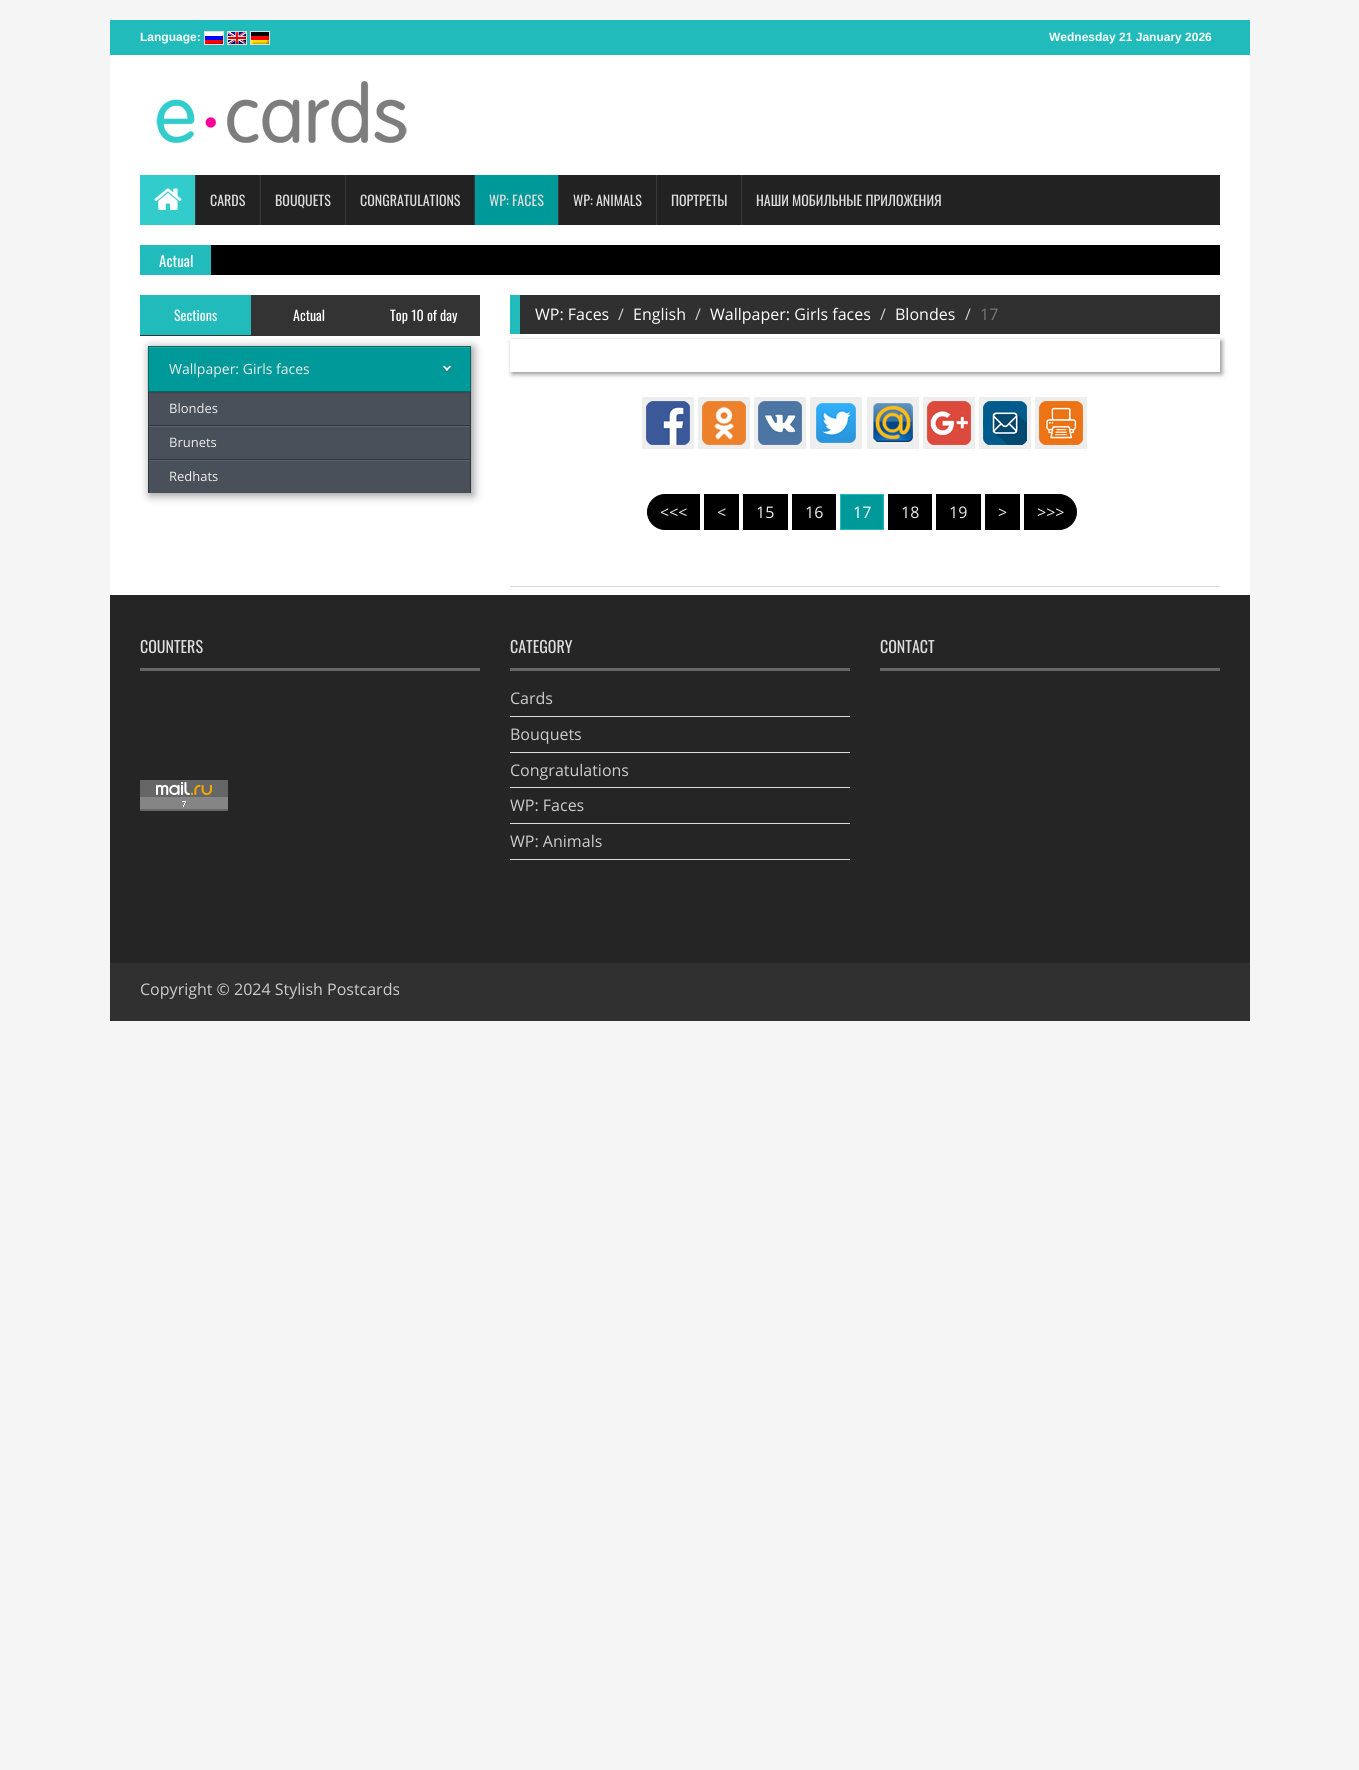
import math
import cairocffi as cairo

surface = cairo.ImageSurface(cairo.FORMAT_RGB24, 1359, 1770)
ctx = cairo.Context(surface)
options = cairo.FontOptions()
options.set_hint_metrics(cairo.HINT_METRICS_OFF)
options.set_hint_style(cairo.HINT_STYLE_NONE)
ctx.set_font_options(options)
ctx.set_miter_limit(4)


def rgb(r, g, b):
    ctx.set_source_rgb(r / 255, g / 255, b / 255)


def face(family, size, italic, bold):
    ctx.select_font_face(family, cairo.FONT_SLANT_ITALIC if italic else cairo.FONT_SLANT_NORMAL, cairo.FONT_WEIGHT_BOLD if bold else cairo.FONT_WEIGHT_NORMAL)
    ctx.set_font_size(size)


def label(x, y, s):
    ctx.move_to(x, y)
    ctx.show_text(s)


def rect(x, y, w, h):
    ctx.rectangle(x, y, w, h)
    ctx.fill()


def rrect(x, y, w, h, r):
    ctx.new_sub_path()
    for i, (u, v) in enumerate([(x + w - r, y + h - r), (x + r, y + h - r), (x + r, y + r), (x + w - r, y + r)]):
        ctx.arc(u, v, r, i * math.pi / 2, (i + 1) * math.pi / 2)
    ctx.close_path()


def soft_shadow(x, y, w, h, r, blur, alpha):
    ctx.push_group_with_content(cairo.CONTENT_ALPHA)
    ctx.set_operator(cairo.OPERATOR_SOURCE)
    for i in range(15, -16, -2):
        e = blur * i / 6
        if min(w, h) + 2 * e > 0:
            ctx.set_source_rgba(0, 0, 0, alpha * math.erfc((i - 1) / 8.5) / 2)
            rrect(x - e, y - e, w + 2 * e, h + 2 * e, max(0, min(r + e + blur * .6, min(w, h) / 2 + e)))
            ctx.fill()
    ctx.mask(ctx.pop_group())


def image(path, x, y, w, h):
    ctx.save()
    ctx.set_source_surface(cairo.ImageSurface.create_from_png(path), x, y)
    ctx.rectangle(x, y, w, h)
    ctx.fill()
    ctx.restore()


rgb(245, 245, 245)
ctx.paint()
rgb(34, 187, 187)
rect(110, 20, 1140, 35)
face('Liberation Sans', 12, 0, 1)
rgb(255, 255, 255)
label(140, 41, 'Language:')
ctx.rectangle(204.5, 31.5, 19, 13)
rgb(221, 221, 221)
ctx.set_line_width(1)
ctx.stroke()
ctx.rectangle(227.5, 31.5, 19, 13)
ctx.stroke()
ctx.rectangle(250.5, 31.5, 19, 13)
ctx.stroke()
image('image0.png', 205, 32, 18, 12)
image('image1.png', 228, 32, 18, 12)
image('image2.png', 251, 32, 18, 12)
rgb(255, 255, 255)
label(1049, 41, 'Wednesday 21 January 2026')
rect(110, 55, 1140, 540)
image('image3.png', 156, 81, 251, 62)
rgb(34, 34, 34)
rect(196, 175, 1024, 50)
rgb(51, 204, 204)
rect(140, 175, 55, 50)
image('image4.png', 154, 188, 28, 22)
rgb(56, 56, 56)
rect(195, 175, 1, 50)
face('Oswald', 14, 0, 0)
rgb(221, 221, 221)
label(210, 206, 'CARDS')
rgb(56, 56, 56)
rect(260, 175, 1, 50)
rgb(221, 221, 221)
label(275, 206, 'BOUQUETS')
rgb(56, 56, 56)
rect(345, 175, 1, 50)
rgb(221, 221, 221)
label(360, 206, 'CONGRATULATIONS')
rgb(0, 153, 153)
rect(475, 175, 83, 50)
rgb(56, 56, 56)
rect(474, 175, 1, 50)
rgb(221, 221, 221)
label(489, 206, 'WP: FACES')
rgb(56, 56, 56)
rect(558, 175, 1, 50)
rgb(221, 221, 221)
label(573, 206, 'WP: ANIMALS')
rgb(56, 56, 56)
rect(656, 175, 1, 50)
rgb(221, 221, 221)
label(671, 206, 'ПОРТРЕТЫ')
rgb(56, 56, 56)
rect(741, 175, 1, 50)
rgb(221, 221, 221)
label(756, 206, 'НАШИ МОБИЛЬНЫЕ ПРИЛОЖЕНИЯ')
rgb(0, 0, 0)
rect(211, 245, 1009, 30)
rgb(34, 187, 187)
rect(140, 245, 71, 30)
face('Oswald', 15, 0, 0)
rgb(255, 255, 255)
label(159, 267, 'Actual')
rgb(51, 51, 51)
rect(140, 295, 340, 41)
rgb(34, 187, 187)
rect(140, 295, 111, 40)
face('Oswald', 14, 0, 0)
rgb(255, 255, 255)
label(174, 321, 'Sections')
label(293, 321, 'Actual')
label(390, 321, 'Top 10 of day')
rgb(0, 0, 0)
soft_shadow(150, 348, 323, 147, 0, 5, 0.45)
rgb(73, 80, 90)
rect(149, 392, 321, 33)
rgb(50, 55, 62)
rect(470, 392, 1, 101)
rect(148, 425, 323, 1)
rect(148, 392, 1, 34)
rgb(0, 0, 0)
soft_shadow(148, 347, 323, 46, 0, 0.5, 0.15)
rgb(0, 153, 153)
rect(149, 348, 321, 43)
rgb(38, 168, 168)
rect(149, 347, 321, 1)
ctx.rectangle(148.5, 346.5, 322, 45)
rgb(0, 102, 102)
ctx.stroke()
face('Open Sans', 14, 0, 0)
rgb(238, 238, 238)
label(169, 374, 'Wallpaper: Girls faces')
rgb(0, 99, 99)
ctx.new_path()
ctx.move_to(447, 372)
ctx.line_to(443, 368)
ctx.line_to(444, 366.5)
ctx.line_to(447, 369)
ctx.close_path()
ctx.move_to(451, 368)
ctx.line_to(447, 372)
ctx.line_to(447, 369)
ctx.line_to(450, 366.5)
ctx.close_path()
ctx.fill()
rgb(238, 238, 238)
ctx.new_path()
ctx.move_to(447, 371)
ctx.line_to(443, 367)
ctx.line_to(444, 365.5)
ctx.line_to(448.5, 369.5)
ctx.close_path()
ctx.fill()
ctx.new_path()
ctx.move_to(447, 371)
ctx.line_to(445.5, 369.5)
ctx.line_to(450, 365.5)
ctx.line_to(451, 367)
ctx.close_path()
ctx.fill()
face('Open Sans', 13, 0, 0)
label(169, 413, 'Blondes')
rgb(73, 80, 90)
rect(149, 427, 321, 32)
rgb(91, 98, 107)
rect(149, 426, 321, 1)
rgb(50, 55, 62)
rect(148, 459, 323, 1)
rect(148, 426, 1, 67)
rgb(238, 238, 238)
label(169, 447, 'Brunets')
rgb(73, 80, 90)
rect(149, 461, 321, 32)
rgb(91, 98, 107)
rect(149, 460, 321, 1)
rgb(238, 238, 238)
label(169, 481, 'Redhats')
rgb(48, 48, 48)
rect(520, 295, 700, 39)
rgb(34, 187, 187)
rect(510, 295, 10, 39)
face('Open Sans', 16, 0, 0)
rgb(255, 255, 255)
label(535, 320, 'WP: Faces')
rgb(204, 204, 204)
label(618, 320, '/')
rgb(255, 255, 255)
label(633, 320, 'English')
rgb(204, 204, 204)
label(695, 320, '/')
rgb(255, 255, 255)
label(710, 320, 'Wallpaper: Girls faces')
rgb(204, 204, 204)
label(880, 320, '/')
rgb(255, 255, 255)
label(895, 320, 'Blondes')
rgb(204, 204, 204)
label(965, 320, '/')
rgb(119, 119, 119)
label(980, 320, '17')
ctx.save()
ctx.set_fill_rule(cairo.FILL_RULE_EVEN_ODD)
ctx.new_path()
ctx.move_to(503, 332)
ctx.line_to(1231, 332)
ctx.line_to(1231, 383)
ctx.line_to(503, 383)
ctx.close_path()
ctx.move_to(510, 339)
ctx.line_to(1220, 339)
ctx.line_to(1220, 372)
ctx.line_to(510, 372)
ctx.close_path()
ctx.clip()
rgb(0, 0, 0)
soft_shadow(512, 341, 710, 33, 0, 2.5, 0.45)
ctx.restore()
rgb(238, 238, 238)
rect(642, 397, 52, 52)
image('image5.png', 646, 401, 44, 44)
rect(698, 397, 52, 52)
image('image6.png', 702, 401, 44, 44)
rect(754, 397, 52, 52)
image('image7.png', 758, 401, 44, 44)
rect(810, 397, 52, 52)
image('image8.png', 816, 403, 40, 40)
rect(867, 397, 52, 52)
image('image9.png', 873, 403, 40, 39)
rect(923, 397, 52, 52)
image('image10.png', 927, 401, 44, 44)
rect(979, 397, 52, 52)
image('image11.png', 983, 401, 44, 44)
rect(1035, 397, 52, 52)
image('image12.png', 1039, 401, 44, 44)
rgb(0, 0, 0)
ctx.new_path()
ctx.move_to(665, 494.5)
ctx.line_to(699.5, 494.5)
ctx.line_to(699.5, 529.5)
ctx.line_to(665, 529.5)
ctx.curve_to(655.5, 529.5, 647.5, 521.5, 647.5, 512)
ctx.curve_to(647.5, 502.5, 655.5, 494.5, 665, 494.5)
ctx.close_path()
ctx.fill_preserve()
ctx.stroke()
rgb(238, 238, 238)
label(660, 518, '<<<')
rgb(0, 0, 0)
rect(704, 494, 35, 36)
rgb(238, 238, 238)
label(717, 518, '<')
rgb(0, 0, 0)
rect(743, 494, 45, 36)
rgb(238, 238, 238)
label(756, 518, '15')
rgb(0, 0, 0)
rect(792, 494, 44, 36)
rgb(238, 238, 238)
label(805, 518, '16')
rgb(0, 153, 153)
ctx.rectangle(840.5, 494.5, 43, 35)
ctx.fill_preserve()
rgb(34, 187, 187)
ctx.stroke()
rgb(255, 255, 255)
label(853, 518, '17')
rgb(0, 0, 0)
rect(888, 494, 44, 36)
rgb(238, 238, 238)
label(901, 518, '18')
rgb(0, 0, 0)
rect(936, 494, 45, 36)
rgb(238, 238, 238)
label(949, 518, '19')
rgb(0, 0, 0)
rect(985, 494, 35, 36)
rgb(238, 238, 238)
label(998, 518, '>')
rgb(0, 0, 0)
ctx.new_path()
ctx.move_to(1024.5, 494.5)
ctx.line_to(1059, 494.5)
ctx.curve_to(1068.5, 494.5, 1076.5, 502.5, 1076.5, 512)
ctx.curve_to(1076.5, 521.5, 1068.5, 529.5, 1059, 529.5)
ctx.line_to(1024.5, 529.5)
ctx.close_path()
ctx.fill_preserve()
ctx.stroke()
rgb(238, 238, 238)
label(1037, 518, '>>>')
rgb(221, 221, 221)
rect(510, 586, 710, 1)
rgb(37, 37, 37)
rect(110, 595, 1140, 368)
rgb(102, 102, 102)
rect(140, 668, 340, 3)
face('Oswald', 16, 0, 0)
rgb(221, 221, 221)
label(140, 653, 'COUNTERS')
image('image13.png', 140, 780, 88, 31)
rgb(102, 102, 102)
rect(510, 668, 340, 3)
rgb(221, 221, 221)
label(510, 653, 'CATEGORY')
rect(510, 716, 340, 1)
face('Open Sans', 16, 0, 0)
rgb(204, 204, 204)
label(510, 704, 'Cards')
rgb(221, 221, 221)
rect(510, 752, 340, 1)
rgb(204, 204, 204)
label(510, 740, 'Bouquets')
rgb(221, 221, 221)
rect(510, 787, 340, 1)
rgb(204, 204, 204)
label(510, 776, 'Congratulations')
rgb(221, 221, 221)
rect(510, 823, 340, 1)
rgb(204, 204, 204)
label(510, 811, 'WP: Faces')
rgb(221, 221, 221)
rect(510, 859, 340, 1)
rgb(204, 204, 204)
label(510, 847, 'WP: Animals')
rgb(102, 102, 102)
rect(880, 668, 340, 3)
face('Oswald', 16, 0, 0)
rgb(221, 221, 221)
label(880, 653, 'CONTACT')
rgb(48, 48, 48)
rect(110, 963, 1140, 58)
face('Open Sans', 16, 0, 0)
rgb(204, 204, 204)
label(140, 995, 'Copyright © 2024 Stylish Postcards')
surface.write_to_png('render.png')
